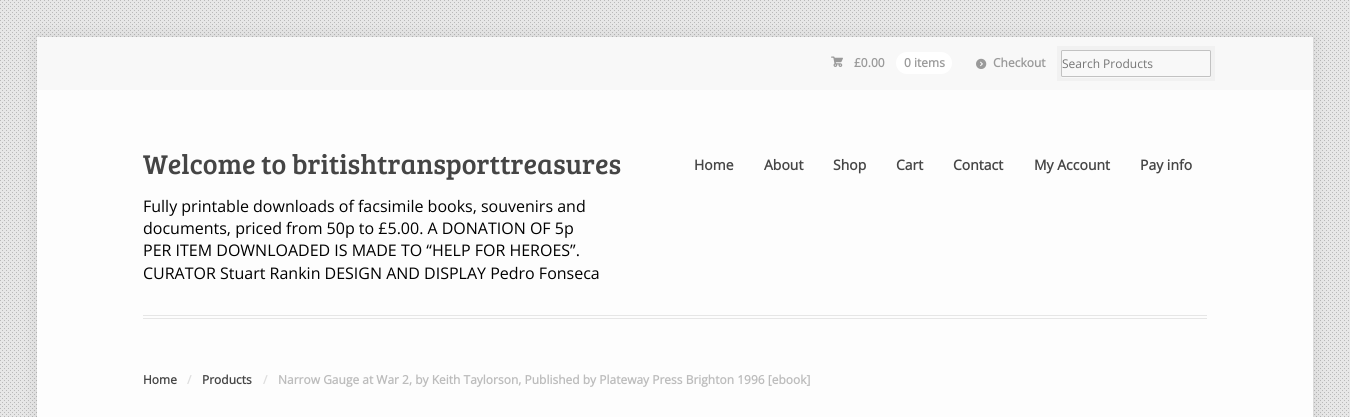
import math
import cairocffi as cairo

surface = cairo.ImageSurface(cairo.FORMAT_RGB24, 1350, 417)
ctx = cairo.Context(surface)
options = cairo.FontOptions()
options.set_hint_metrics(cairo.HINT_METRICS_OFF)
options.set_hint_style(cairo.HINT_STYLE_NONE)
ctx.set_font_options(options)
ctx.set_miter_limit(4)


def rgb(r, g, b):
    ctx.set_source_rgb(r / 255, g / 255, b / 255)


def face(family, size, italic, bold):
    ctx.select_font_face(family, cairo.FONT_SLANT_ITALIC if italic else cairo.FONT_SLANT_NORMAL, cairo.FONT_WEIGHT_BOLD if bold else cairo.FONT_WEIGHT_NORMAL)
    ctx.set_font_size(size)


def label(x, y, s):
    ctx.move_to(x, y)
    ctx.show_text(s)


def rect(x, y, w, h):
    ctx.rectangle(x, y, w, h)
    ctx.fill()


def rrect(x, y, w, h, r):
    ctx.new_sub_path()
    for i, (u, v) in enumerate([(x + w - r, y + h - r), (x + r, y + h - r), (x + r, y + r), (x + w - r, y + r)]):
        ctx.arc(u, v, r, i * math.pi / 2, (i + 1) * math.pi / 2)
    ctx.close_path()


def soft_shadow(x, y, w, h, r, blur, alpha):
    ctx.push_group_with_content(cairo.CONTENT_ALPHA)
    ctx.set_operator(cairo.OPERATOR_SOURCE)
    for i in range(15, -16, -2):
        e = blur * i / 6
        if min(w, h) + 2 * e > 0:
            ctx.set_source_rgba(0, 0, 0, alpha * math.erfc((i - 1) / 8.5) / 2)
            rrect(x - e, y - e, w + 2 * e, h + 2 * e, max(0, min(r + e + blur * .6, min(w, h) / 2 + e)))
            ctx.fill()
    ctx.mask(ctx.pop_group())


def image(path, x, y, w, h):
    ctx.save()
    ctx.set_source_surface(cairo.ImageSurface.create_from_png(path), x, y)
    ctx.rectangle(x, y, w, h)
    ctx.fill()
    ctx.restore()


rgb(231, 231, 231)
ctx.paint()
image('image0.png', 0, 0, 1349, 417)
rgb(0, 0, 0)
soft_shadow(37, 37, 1276, 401, 0, 7, 0.1)
rgb(253, 253, 253)
rect(37, 90, 1276, 327)
rgb(248, 248, 248)
rect(37, 37, 1276, 53)
face('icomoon', 12, 0, 0)
rgb(154, 154, 154)
label(831, 67, '£')
face('Open Sans', 12, 0, 1)
label(854, 67, '£0.00')
rgb(255, 255, 255)
rrect(896, 52, 56, 22, 11)
ctx.fill()
rgb(154, 154, 154)
label(904, 67, '0 items')
image('image1.png', 976, 58, 11, 11)
label(993, 67, 'Checkout')
rgb(255, 255, 255)
ctx.new_path()
ctx.move_to(1061, 76)
ctx.curve_to(1061, 77, 1061, 78, 1062, 78)
ctx.line_to(1210, 78)
ctx.curve_to(1211, 78, 1211, 77, 1211, 76)
ctx.curve_to(1211, 76, 1210, 77, 1210, 77)
ctx.line_to(1062, 77)
ctx.curve_to(1062, 77, 1061, 76, 1061, 76)
ctx.close_path()
ctx.fill()
ctx.rectangle(1059, 48, 154, 31)
ctx.set_source_rgba(0, 0, 0, 0.03)
ctx.set_line_width(4)
ctx.stroke()
rrect(1061.5, 50.5, 149, 26, 1)
rgb(194, 194, 194)
ctx.set_line_width(1)
ctx.stroke()
face('Open Sans', 12, 0, 0)
rgb(117, 117, 117)
label(1062, 68, 'Search Products')
rgb(230, 230, 230)
rect(143, 315, 1064, 1)
rect(143, 318, 1064, 1)
face('Bree Serif', 28, 0, 0)
rgb(69, 69, 69)
label(143, 174, 'Welcome to britishtransporttreasures')
face('Open Sans', 16, 0, 0)
rgb(0, 0, 0)
label(143, 212, 'Fully printable downloads of facsimile books, souvenirs and')
label(143, 234, 'documents, priced from 50p to £5.00. A DONATION OF 5p')
label(143, 256, 'PER ITEM DOWNLOADED IS MADE TO “HELP FOR HEROES”.')
label(143, 279, 'CURATOR Stuart Rankin DESIGN AND DISPLAY Pedro Fonseca')
face('Open Sans', 14, 0, 1)
rgb(69, 69, 69)
label(694, 170, 'Home')
label(764, 170, 'About')
label(833, 170, 'Shop')
label(896, 170, 'Cart')
label(953, 170, 'Contact')
label(1034, 170, 'My Account')
label(1140, 170, 'Pay info')
face('Open Sans', 12, 0, 1)
label(143, 384, 'Home')
rgb(222, 222, 222)
label(187, 384, '/')
rgb(69, 69, 69)
label(202, 384, 'Products')
rgb(222, 222, 222)
label(263, 384, '/')
rgb(188, 188, 188)
label(278, 384, 'Narrow Gauge at War 2, by Keith Taylorson, Published by Plateway Press Brighton 1996 [ebook]')
surface.write_to_png('render.png')
